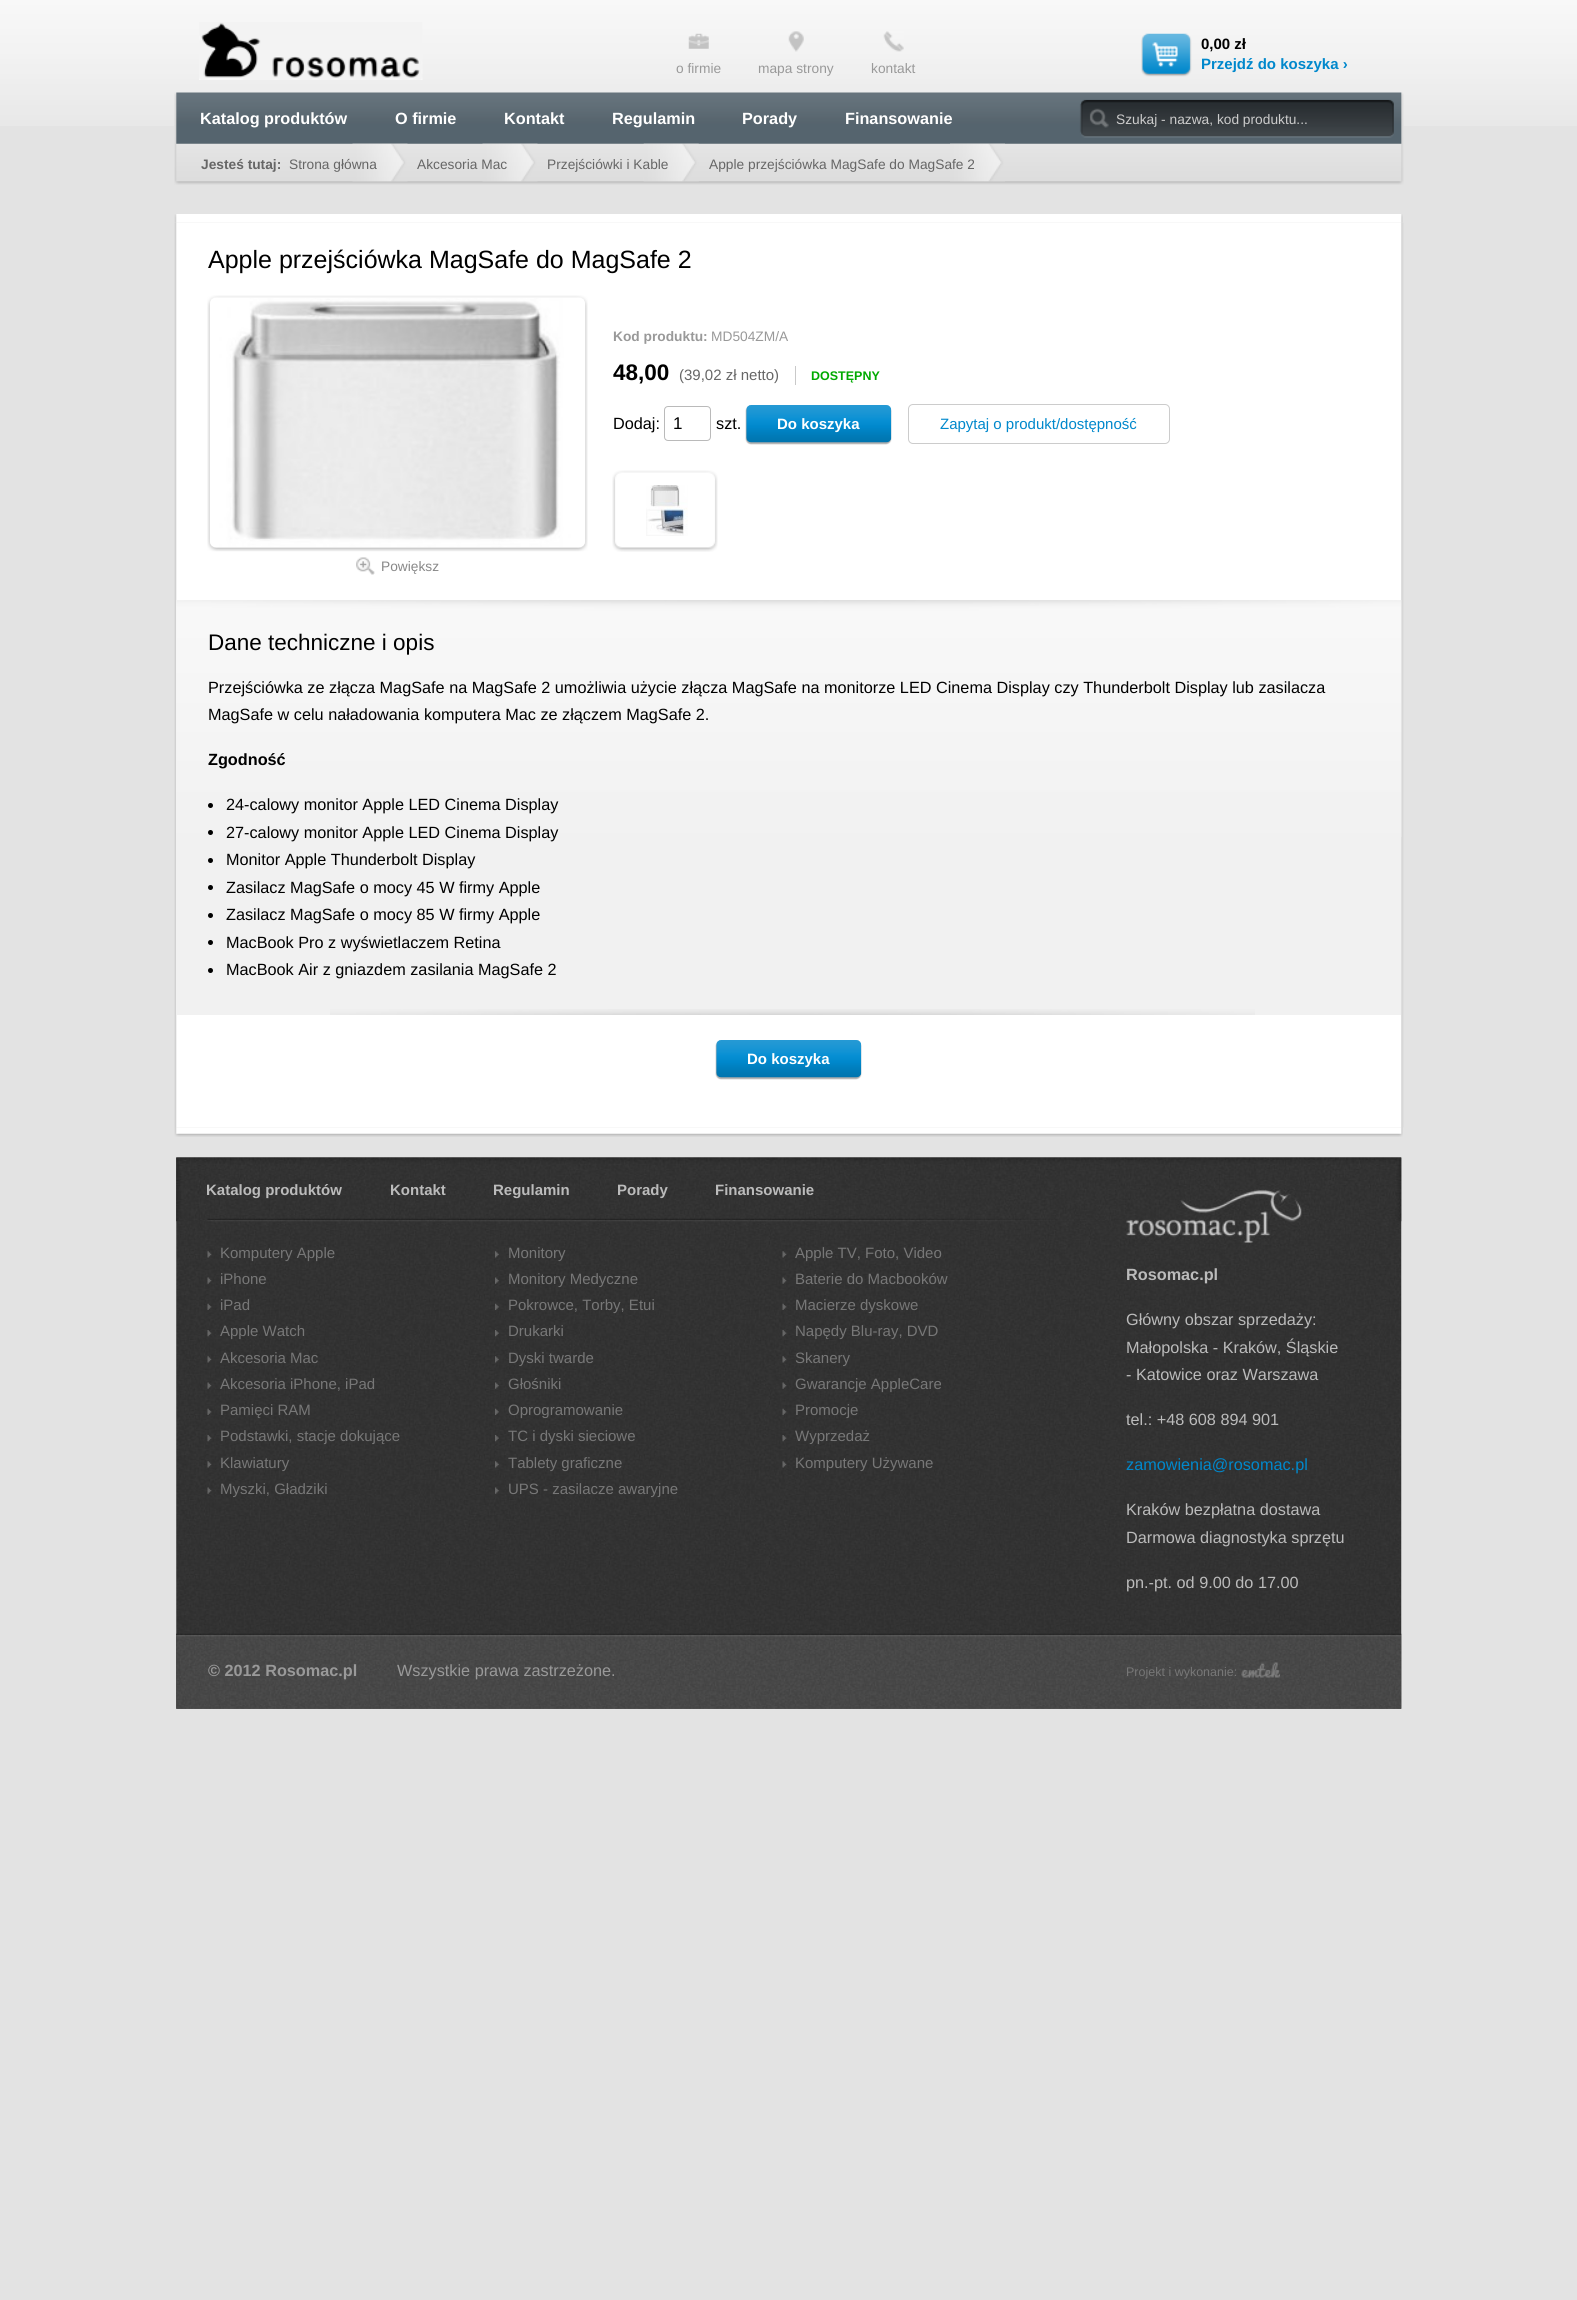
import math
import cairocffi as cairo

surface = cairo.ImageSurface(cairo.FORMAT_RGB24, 1577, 2300)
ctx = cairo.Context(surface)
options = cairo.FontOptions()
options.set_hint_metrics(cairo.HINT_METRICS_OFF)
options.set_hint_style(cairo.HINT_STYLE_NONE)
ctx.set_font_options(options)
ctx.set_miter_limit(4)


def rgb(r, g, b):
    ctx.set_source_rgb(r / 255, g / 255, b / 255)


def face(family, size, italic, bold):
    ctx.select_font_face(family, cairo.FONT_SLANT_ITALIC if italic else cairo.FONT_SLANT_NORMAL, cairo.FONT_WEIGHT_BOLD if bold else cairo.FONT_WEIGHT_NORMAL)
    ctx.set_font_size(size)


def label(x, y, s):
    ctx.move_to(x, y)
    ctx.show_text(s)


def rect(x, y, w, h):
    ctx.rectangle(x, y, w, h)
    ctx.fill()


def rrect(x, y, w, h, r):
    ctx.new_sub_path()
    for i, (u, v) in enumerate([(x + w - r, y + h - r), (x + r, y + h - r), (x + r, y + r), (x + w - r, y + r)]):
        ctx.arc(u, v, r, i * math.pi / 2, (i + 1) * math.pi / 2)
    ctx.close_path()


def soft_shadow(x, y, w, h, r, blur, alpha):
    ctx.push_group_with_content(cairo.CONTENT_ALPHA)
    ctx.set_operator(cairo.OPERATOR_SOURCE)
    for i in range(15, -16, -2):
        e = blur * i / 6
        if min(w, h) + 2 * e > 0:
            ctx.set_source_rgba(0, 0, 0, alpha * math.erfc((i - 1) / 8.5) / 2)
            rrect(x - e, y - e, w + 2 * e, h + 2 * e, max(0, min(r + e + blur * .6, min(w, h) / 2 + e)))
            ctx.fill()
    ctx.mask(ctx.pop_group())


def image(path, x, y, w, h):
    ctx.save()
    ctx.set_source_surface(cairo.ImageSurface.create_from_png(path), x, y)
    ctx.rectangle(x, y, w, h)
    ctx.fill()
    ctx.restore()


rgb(227, 227, 227)
ctx.paint()
image('image0.png', 0, 0, 1577, 126)
image('image1.png', 199, 22, 224, 58)
image('image2.png', 688, 33, 21, 16)
face('Liberation Sans', 13.75, 0, 0)
rgb(153, 153, 153)
label(676, 73, 'o firmie')
image('image3.png', 788, 31, 16, 21)
label(758, 73, 'mapa strony')
image('image4.png', 883, 31, 21, 21)
label(871, 73, 'kontakt')
image('image5.png', 1141, 33, 51, 44)
face('Liberation Sans', 15, 0, 1)
rgb(0, 0, 0)
label(1201, 49, '0,00 zł')
rgb(0, 136, 204)
label(1201, 69, 'Przejdź do koszyka ›')
image('image6.png', 174, 92, 1230, 93)
face('Liberation Sans', 16.25, 0, 1)
rgb(255, 255, 255)
label(200, 124, 'Katalog produktów')
label(395, 124, 'O firmie')
label(504, 124, 'Kontakt')
label(612, 124, 'Regulamin')
label(742, 124, 'Porady')
label(845, 124, 'Finansowanie')
face('Liberation Sans', 13.75, 0, 0)
rgb(204, 204, 204)
label(1116, 124, 'Szukaj - nazwa, kod produktu...')
image('image7.png', 352, 143, 56, 39)
face('Liberation Sans', 13.75, 0, 1)
rgb(102, 102, 102)
label(201, 169, 'Jesteś tutaj:')
face('Liberation Sans', 13.75, 0, 0)
label(289, 169, 'Strona główna')
image('image8.png', 482, 143, 56, 39)
label(417, 169, 'Akcesoria Mac')
image('image9.png', 643, 143, 56, 39)
label(547, 169, 'Przejściówki i Kable')
image('image10.png', 950, 143, 55, 39)
label(709, 169, 'Apple przejściówka MagSafe do MagSafe 2')
image('image11.png', 174, 214, 1229, 9)
image('image12.png', 174, 222, 1230, 906)
face('Liberation Sans', 25, 0, 0)
rgb(0, 0, 0)
label(208, 268, 'Apple przejściówka MagSafe do MagSafe 2')
face('Liberation Sans', 13.75, 0, 1)
rgb(153, 153, 153)
label(613, 341, 'Kod produktu:')
face('Liberation Sans', 13.75, 0, 0)
label(711, 341, 'MD504ZM/A')
face('Liberation Sans', 22.5, 0, 1)
rgb(0, 0, 0)
label(613, 380, '48,00')
face('Liberation Sans', 15, 0, 0)
rgb(102, 102, 102)
label(679, 380, '(39,02 zł netto)')
rgb(201, 201, 201)
rect(795, 366, 1, 19)
face('Liberation Sans', 12.5, 0, 1)
rgb(0, 170, 0)
label(811, 380, 'DOSTĘPNY')
face('Liberation Sans', 16.25, 0, 0)
rgb(0, 0, 0)
label(613, 429, 'Dodaj:')
rrect(664.5, 406.5, 46, 34, 3.5)
rgb(186, 186, 186)
ctx.set_line_width(1)
ctx.stroke()
face('Liberation Sans', 17, 0, 0)
rgb(0, 0, 0)
label(673, 429, '1')
face('Liberation Sans', 16.25, 0, 0)
label(716, 429, 'szt.')
rgb(0, 0, 0)
soft_shadow(746, 406, 145, 38, 5, 0.5, 0.33)
image('image13.png', 746, 405, 146, 38)
face('Liberation Sans', 15, 0, 1)
rgb(255, 255, 255)
label(777, 429, 'Do koszyka')
rrect(908.5, 404.5, 261, 39, 4.5)
rgb(204, 204, 204)
ctx.stroke()
face('Liberation Sans', 15, 0, 0)
rgb(0, 136, 204)
label(940, 429, 'Zapytaj o produkt/dostępność')
image('image14.png', 612, 470, 106, 82)
image('image15.png', 646, 485, 42, 51)
image('image16.png', 207, 295, 381, 257)
image('image17.png', 210, 298, 375, 250)
image('image18.png', 356, 557, 19, 18)
face('Liberation Sans', 13.75, 0, 0)
rgb(136, 136, 136)
label(381, 571, 'Powiększ')
rgb(241, 241, 241)
rect(177, 600, 1224, 415)
image('image19.png', 176, 600, 1226, 237)
image('image20.png', 330, 1009, 925, 6)
face('Liberation Sans', 22.5, 0, 0)
rgb(0, 0, 0)
label(208, 650, 'Dane techniczne i opis')
face('Liberation Sans', 16.25, 0, 0)
label(208, 693, 'Przejściówka ze złącza MagSafe na MagSafe 2 umożliwia użycie złącza MagSafe na monitorze LED Cinema Display czy Thunderbolt Display lub zasilacza')
label(208, 720, 'MagSafe w celu naładowania komputera Mac ze złączem MagSafe 2.')
face('Liberation Sans', 16.25, 0, 1)
label(208, 765, 'Zgodność')
ctx.new_path()
ctx.arc(210.5, 805.5, 2.5, 0, 2 * math.pi)
ctx.fill()
face('Liberation Sans', 16.25, 0, 0)
label(226, 810, '24-calowy monitor Apple LED Cinema Display')
ctx.new_path()
ctx.arc(210.5, 832.5, 2.5, 0, 2 * math.pi)
ctx.fill()
label(226, 838, '27-calowy monitor Apple LED Cinema Display')
ctx.new_path()
ctx.arc(210.5, 860.5, 2.5, 0, 2 * math.pi)
ctx.fill()
label(226, 865, 'Monitor Apple Thunderbolt Display')
ctx.new_path()
ctx.arc(210.5, 887.5, 2.5, 0, 2 * math.pi)
ctx.fill()
label(226, 893, 'Zasilacz MagSafe o mocy 45 W firmy Apple')
ctx.new_path()
ctx.arc(210.5, 915.5, 2.5, 0, 2 * math.pi)
ctx.fill()
label(226, 920, 'Zasilacz MagSafe o mocy 85 W firmy Apple')
ctx.new_path()
ctx.arc(210.5, 942.5, 2.5, 0, 2 * math.pi)
ctx.fill()
label(226, 948, 'MacBook Pro z wyświetlaczem Retina')
ctx.new_path()
ctx.arc(210.5, 970.5, 2.5, 0, 2 * math.pi)
ctx.fill()
label(226, 975, 'MacBook Air z gniazdem zasilania MagSafe 2')
rgb(0, 0, 0)
soft_shadow(716, 1041, 145, 38, 5, 0.5, 0.33)
image('image21.png', 716, 1040, 146, 38)
face('Liberation Sans', 15, 0, 1)
rgb(255, 255, 255)
label(747, 1064, 'Do koszyka')
image('image22.png', 174, 1127, 1229, 10)
image('image23.png', 176, 1157, 1226, 552)
image('image24.png', 176, 1157, 1226, 65)
rgb(187, 187, 187)
label(206, 1195, 'Katalog produktów')
label(390, 1195, 'Kontakt')
label(493, 1195, 'Regulamin')
label(617, 1195, 'Porady')
label(715, 1195, 'Finansowanie')
image('image25.png', 207, 1251, 5, 7)
face('Liberation Sans', 15, 0, 0)
rgb(119, 119, 119)
label(220, 1258, 'Komputery Apple')
image('image26.png', 207, 1277, 5, 7)
label(220, 1284, 'iPhone')
image('image27.png', 207, 1303, 5, 7)
label(220, 1310, 'iPad')
image('image28.png', 207, 1330, 5, 7)
label(220, 1336, 'Apple Watch')
image('image29.png', 207, 1356, 5, 7)
label(220, 1363, 'Akcesoria Mac')
image('image30.png', 207, 1382, 5, 7)
label(220, 1389, 'Akcesoria iPhone, iPad')
image('image31.png', 207, 1408, 5, 7)
label(220, 1415, 'Pamięci RAM')
image('image32.png', 207, 1435, 5, 7)
label(220, 1441, 'Podstawki, stacje dokujące')
image('image33.png', 207, 1461, 5, 7)
label(220, 1468, 'Klawiatury')
image('image34.png', 207, 1487, 5, 7)
label(220, 1494, 'Myszki, Gładziki')
image('image35.png', 495, 1251, 4, 7)
label(508, 1258, 'Monitory')
image('image36.png', 495, 1277, 4, 7)
label(508, 1284, 'Monitory Medyczne')
image('image37.png', 495, 1303, 4, 7)
label(508, 1310, 'Pokrowce, Torby, Etui')
image('image38.png', 495, 1330, 4, 7)
label(508, 1336, 'Drukarki')
image('image39.png', 495, 1356, 4, 7)
label(508, 1363, 'Dyski twarde')
image('image40.png', 495, 1382, 4, 7)
label(508, 1389, 'Głośniki')
image('image41.png', 495, 1408, 4, 7)
label(508, 1415, 'Oprogramowanie')
image('image42.png', 495, 1435, 4, 7)
label(508, 1441, 'TC i dyski sieciowe')
image('image43.png', 495, 1461, 4, 7)
label(508, 1468, 'Tablety graficzne')
image('image44.png', 495, 1487, 4, 7)
label(508, 1494, 'UPS - zasilacze awaryjne')
image('image45.png', 782, 1251, 5, 7)
label(795, 1258, 'Apple TV, Foto, Video')
image('image46.png', 782, 1277, 5, 7)
label(795, 1284, 'Baterie do Macbooków')
image('image47.png', 782, 1303, 5, 7)
label(795, 1310, 'Macierze dyskowe')
image('image48.png', 782, 1330, 5, 7)
label(795, 1336, 'Napędy Blu-ray, DVD')
image('image49.png', 782, 1356, 5, 7)
label(795, 1363, 'Skanery')
image('image50.png', 782, 1382, 5, 7)
label(795, 1389, 'Gwarancje AppleCare')
image('image51.png', 782, 1408, 5, 7)
label(795, 1415, 'Promocje')
image('image52.png', 782, 1435, 5, 7)
label(795, 1441, 'Wyprzedaż')
image('image53.png', 782, 1461, 5, 7)
label(795, 1468, 'Komputery Używane')
image('image54.png', 1126, 1189, 176, 55)
face('Liberation Sans', 16.25, 0, 1)
rgb(187, 187, 187)
label(1126, 1280, 'Rosomac.pl')
face('Liberation Sans', 16.25, 0, 0)
label(1126, 1325, 'Główny obszar sprzedaży:')
label(1126, 1353, 'Małopolska - Kraków, Śląskie')
label(1126, 1380, '- Katowice oraz Warszawa')
label(1126, 1425, 'tel.: +48 608 894 901')
rgb(0, 136, 204)
label(1126, 1470, 'zamowienia@rosomac.pl')
rgb(187, 187, 187)
label(1126, 1515, 'Kraków bezpłatna dostawa')
label(1126, 1543, 'Darmowa diagnostyka sprzętu')
label(1126, 1588, 'pn.-pt. od 9.00 do 17.00')
image('image55.png', 176, 1633, 1226, 76)
face('Liberation Sans', 16.25, 0, 1)
rgb(153, 153, 153)
label(208, 1676, '© 2012 Rosomac.pl')
face('Liberation Sans', 16.25, 0, 0)
label(397, 1676, 'Wszystkie prawa zastrzeżone.')
face('Liberation Sans', 12.5, 0, 0)
rgb(119, 119, 119)
label(1126, 1676, 'Projekt i wykonanie:')
image('image56.png', 1241, 1662, 39, 16)
surface.write_to_png('render.png')
